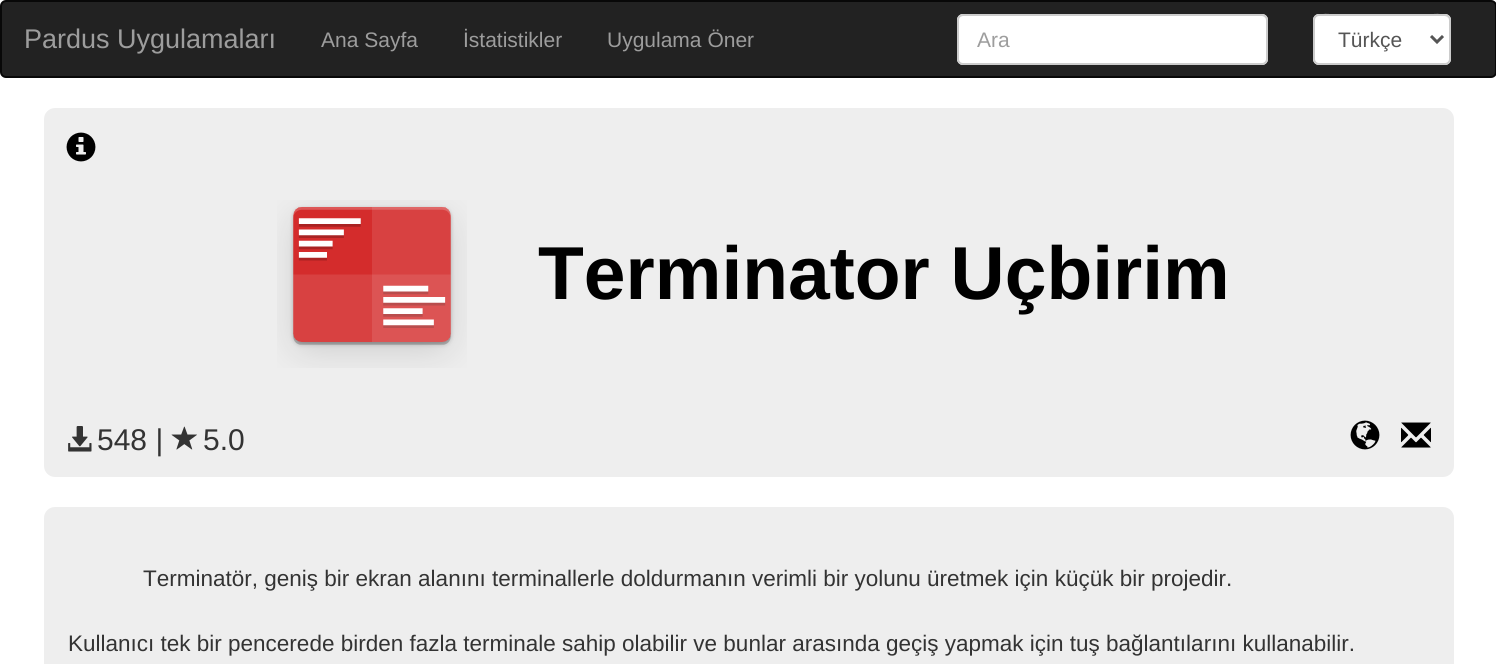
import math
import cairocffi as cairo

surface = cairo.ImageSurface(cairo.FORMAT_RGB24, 1496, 664)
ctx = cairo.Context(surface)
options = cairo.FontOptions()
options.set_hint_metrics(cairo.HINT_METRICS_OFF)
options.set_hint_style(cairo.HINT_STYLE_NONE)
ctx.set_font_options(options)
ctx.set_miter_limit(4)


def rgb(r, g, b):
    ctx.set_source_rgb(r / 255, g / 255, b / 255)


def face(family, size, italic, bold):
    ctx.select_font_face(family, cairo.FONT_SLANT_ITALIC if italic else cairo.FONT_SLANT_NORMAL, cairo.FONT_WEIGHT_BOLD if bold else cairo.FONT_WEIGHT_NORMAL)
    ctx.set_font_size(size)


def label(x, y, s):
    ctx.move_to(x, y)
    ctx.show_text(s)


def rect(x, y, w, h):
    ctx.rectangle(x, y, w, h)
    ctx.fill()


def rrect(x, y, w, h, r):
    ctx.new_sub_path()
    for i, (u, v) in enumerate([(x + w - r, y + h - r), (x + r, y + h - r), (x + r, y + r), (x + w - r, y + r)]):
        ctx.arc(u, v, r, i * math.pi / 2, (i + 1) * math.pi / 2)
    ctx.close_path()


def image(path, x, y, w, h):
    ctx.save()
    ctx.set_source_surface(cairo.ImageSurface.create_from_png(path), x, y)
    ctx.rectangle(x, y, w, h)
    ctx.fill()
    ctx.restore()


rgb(255, 255, 255)
ctx.paint()
rgb(34, 34, 34)
rrect(1, 1, 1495, 76, 5)
ctx.fill_preserve()
rgb(8, 8, 8)
ctx.stroke()
face('Liberation Sans', 27, 0, 0)
rgb(157, 157, 157)
label(24, 48, 'Pardus Uygulamaları')
face('Liberation Sans', 21, 0, 0)
label(321, 47, 'Ana Sayfa')
label(463, 47, 'İstatistikler')
label(607, 47, 'Uygulama Öner')
rgb(255, 255, 255)
rrect(957, 14, 311, 51, 6)
ctx.fill()
rgb(236, 236, 236)
ctx.new_path()
ctx.move_to(963, 16)
ctx.line_to(1262, 16)
ctx.curve_to(1264, 16, 1266, 19, 1266, 21)
ctx.curve_to(1266, 18, 1264, 15, 1261, 15)
ctx.line_to(963, 15)
ctx.curve_to(961, 15, 960, 17, 959, 18)
ctx.curve_to(960, 17, 962, 16, 963, 16)
ctx.close_path()
ctx.fill()
rrect(958, 15, 309, 49, 5)
rgb(204, 204, 204)
ctx.stroke()
rgb(157, 157, 157)
label(977, 47, 'Ara')
rgb(255, 255, 255)
rrect(1313, 14, 138, 51, 6)
ctx.fill()
rgb(236, 236, 236)
ctx.new_path()
ctx.move_to(1318, 16)
ctx.line_to(1444, 16)
ctx.curve_to(1447, 16, 1449, 19, 1449, 21)
ctx.curve_to(1449, 10, 1427, 15, 1423, 15)
ctx.line_to(1340, 15)
ctx.curve_to(1336, 15, 1314, 10, 1314, 21)
ctx.curve_to(1314, 19, 1316, 16, 1318, 16)
ctx.close_path()
ctx.fill()
rrect(1314, 15, 136, 49, 5)
rgb(204, 204, 204)
ctx.stroke()
ctx.new_path()
ctx.move_to(1431, 36)
ctx.line_to(1437, 42)
ctx.line_to(1443, 36)
rgb(85, 85, 85)
ctx.set_line_width(3)
ctx.stroke()
label(1338, 47, 'Türkçe')
rgb(238, 238, 238)
ctx.new_path()
ctx.move_to(55, 108)
ctx.line_to(1443, 108)
ctx.curve_to(1449, 108, 1454, 113, 1454, 119)
ctx.line_to(1454, 162)
ctx.line_to(44, 162)
ctx.line_to(44, 119)
ctx.curve_to(44, 113, 49, 108, 55, 108)
ctx.close_path()
ctx.fill()
image('image0.png', 66, 132, 30, 30)
rect(44, 162, 1410, 255)
image('image1.png', 277, 200, 190, 168)
face('Liberation Sans', 75, 0, 1)
rgb(0, 0, 0)
label(538, 299, 'Terminator Uçbirim')
rgb(238, 238, 238)
ctx.new_path()
ctx.move_to(44, 417)
ctx.line_to(1454, 417)
ctx.line_to(1454, 466)
ctx.curve_to(1454, 472, 1449, 477, 1443, 477)
ctx.line_to(55, 477)
ctx.curve_to(49, 477, 44, 472, 44, 466)
ctx.close_path()
ctx.fill()
image('image2.png', 68, 426, 24, 26)
face('Liberation Sans', 30, 0, 0)
rgb(51, 51, 51)
label(97, 450, '548 |')
image('image3.png', 171, 426, 26, 24)
label(203, 450, '5.0')
image('image4.png', 1350, 420, 30, 30)
image('image5.png', 1401, 422, 30, 26)
rgb(238, 238, 238)
rrect(44, 507, 1410, 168, 11)
ctx.fill()
face('Liberation Sans', 22.5, 0, 0)
rgb(51, 51, 51)
label(143, 586, 'Terminatör, geniş bir ekran alanını terminallerle doldurmanın verimli bir yolunu üretmek için küçük bir projedir.')
label(68, 651, 'Kullanıcı tek bir pencerede birden fazla terminale sahip olabilir ve bunlar arasında geçiş yapmak için tuş bağlantılarını kullanabilir.')
surface.write_to_png('render.png')
